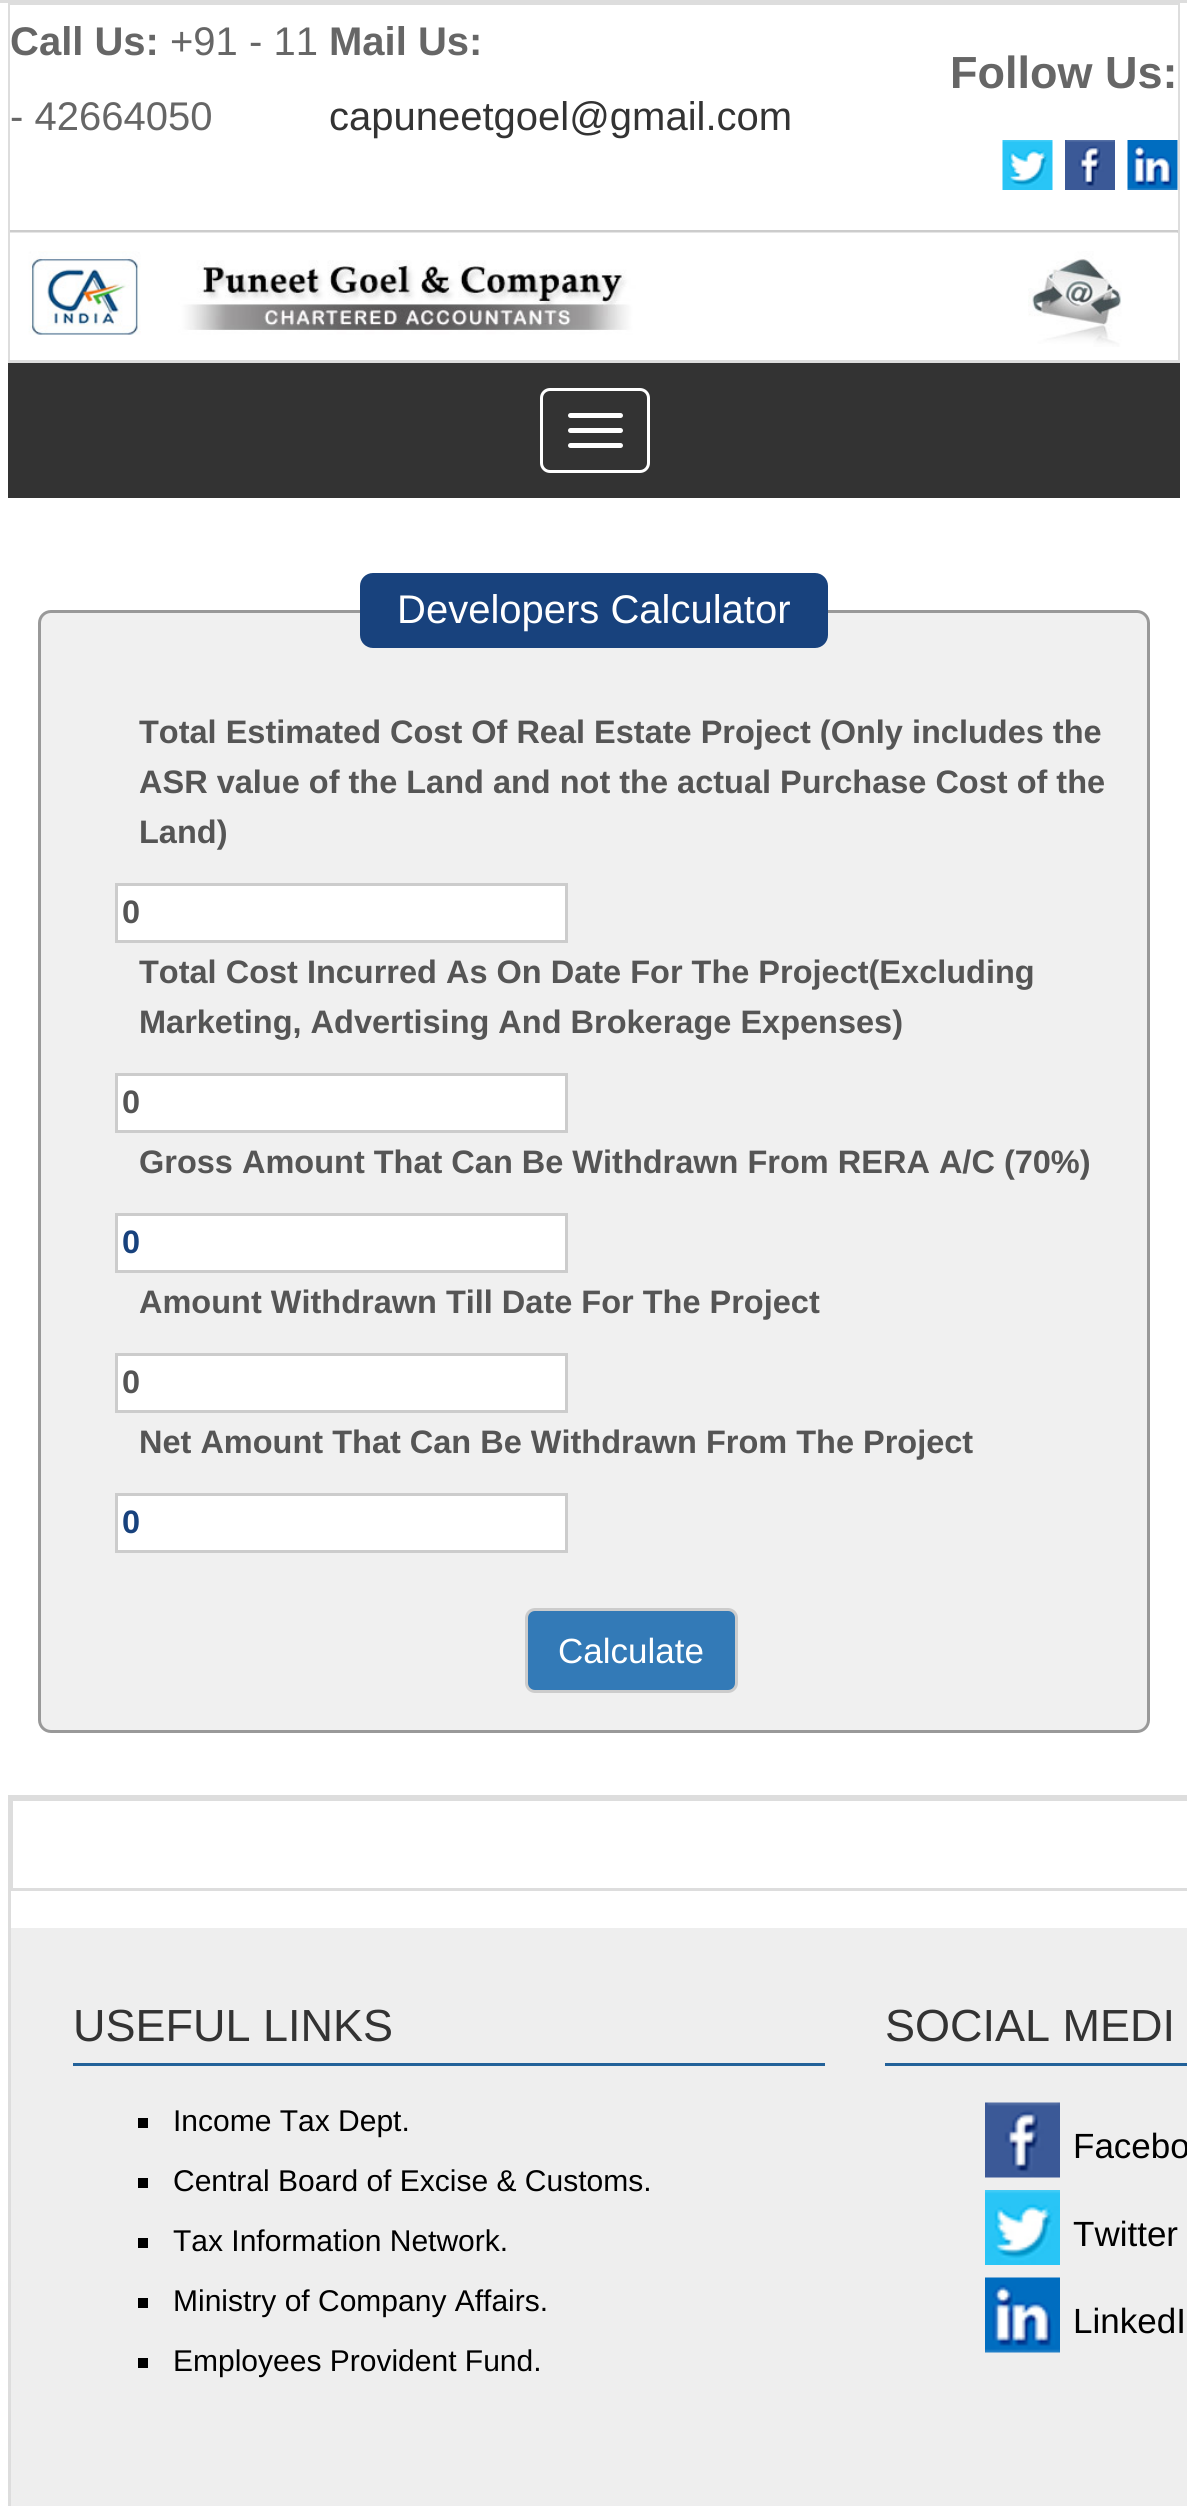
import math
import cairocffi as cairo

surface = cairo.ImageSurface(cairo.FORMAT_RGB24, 1187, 2506)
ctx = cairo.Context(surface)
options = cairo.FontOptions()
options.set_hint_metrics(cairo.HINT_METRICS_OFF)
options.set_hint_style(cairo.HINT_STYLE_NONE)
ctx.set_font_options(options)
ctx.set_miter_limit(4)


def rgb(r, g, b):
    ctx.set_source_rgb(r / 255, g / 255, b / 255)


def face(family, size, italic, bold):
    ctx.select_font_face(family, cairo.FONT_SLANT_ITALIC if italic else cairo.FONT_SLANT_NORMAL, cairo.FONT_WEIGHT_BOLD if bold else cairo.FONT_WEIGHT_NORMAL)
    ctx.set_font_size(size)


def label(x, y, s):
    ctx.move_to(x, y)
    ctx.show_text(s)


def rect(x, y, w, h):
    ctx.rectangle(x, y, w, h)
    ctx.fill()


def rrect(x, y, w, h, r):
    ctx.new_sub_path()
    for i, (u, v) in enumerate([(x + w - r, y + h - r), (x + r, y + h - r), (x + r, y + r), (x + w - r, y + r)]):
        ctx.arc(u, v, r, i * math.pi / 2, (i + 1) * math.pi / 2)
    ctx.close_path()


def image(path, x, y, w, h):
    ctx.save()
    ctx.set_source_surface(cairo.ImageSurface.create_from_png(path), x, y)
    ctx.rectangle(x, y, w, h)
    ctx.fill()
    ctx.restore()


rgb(255, 255, 255)
ctx.paint()
ctx.rectangle(-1.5, 1.5, 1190, 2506)
rgb(221, 221, 221)
ctx.set_line_width(3)
ctx.stroke()
rect(8, 3, 1172, 2)
rect(1178, 3, 2, 360)
rect(8, 360, 1172, 3)
rect(8, 3, 3, 360)
rgb(255, 255, 255)
rect(10, 5, 1, 355)
face('Liberation Sans', 40, 0, 1)
rgb(102, 102, 102)
label(10, 55, 'Call Us:')
face('Liberation Sans', 40, 0, 0)
label(170, 55, '+91 - 11')
label(10, 130, '- 42664050')
face('Liberation Sans', 40, 0, 1)
label(329, 55, 'Mail Us:')
face('Liberation Sans', 40, 0, 0)
rgb(51, 51, 51)
label(329, 130, 'capuneetgoel@gmail.com')
face('Liberation Sans', 45, 0, 1)
rgb(102, 102, 102)
label(950, 88, 'Follow Us:')
image('image0.png', 1002, 140, 51, 50)
image('image1.png', 1065, 140, 50, 50)
image('image2.png', 1127, 140, 51, 50)
rgb(204, 204, 204)
rect(10, 230, 1168, 3)
image('image3.png', 10, 232, 1168, 115)
rgb(51, 51, 51)
rect(8, 363, 1172, 135)
rrect(541.5, 389.5, 107, 82, 8.5)
rgb(255, 255, 255)
ctx.stroke()
rrect(568, 413, 55, 5, 2.5)
ctx.fill()
rrect(568, 428, 55, 5, 2.5)
ctx.fill()
rrect(568, 443, 55, 5, 2.5)
ctx.fill()
rgb(240, 240, 240)
rrect(39.5, 611.5, 1109, 1120, 11.5)
ctx.fill_preserve()
rgb(153, 153, 153)
ctx.stroke()
rgb(24, 66, 125)
rrect(360, 573, 468, 75, 13)
ctx.fill()
face('Liberation Sans', 40, 0, 0)
rgb(255, 255, 255)
label(397, 623, 'Developers Calculator')
face('Liberation Sans', 32.5, 0, 1)
rgb(85, 85, 85)
label(139, 743, 'Total Estimated Cost Of Real Estate Project (Only includes the')
label(139, 793, 'ASR value of the Land and not the actual Purchase Cost of the')
label(139, 843, 'Land)')
rgb(255, 255, 255)
ctx.rectangle(116.5, 884.5, 450, 57)
ctx.fill_preserve()
rgb(204, 204, 204)
ctx.stroke()
rgb(85, 85, 85)
label(122, 923, '0')
label(139, 983, 'Total Cost Incurred As On Date For The Project(Excluding')
label(139, 1033, 'Marketing, Advertising And Brokerage Expenses)')
rgb(255, 255, 255)
ctx.rectangle(116.5, 1074.5, 450, 57)
ctx.fill_preserve()
rgb(204, 204, 204)
ctx.stroke()
rgb(85, 85, 85)
label(122, 1113, '0')
label(139, 1173, 'Gross Amount That Can Be Withdrawn From RERA A/C (70%)')
rgb(255, 255, 255)
ctx.rectangle(116.5, 1214.5, 450, 57)
ctx.fill_preserve()
rgb(204, 204, 204)
ctx.stroke()
rgb(24, 66, 125)
label(122, 1253, '0')
rgb(85, 85, 85)
label(139, 1313, 'Amount Withdrawn Till Date For The Project')
rgb(255, 255, 255)
ctx.rectangle(116.5, 1354.5, 450, 57)
ctx.fill_preserve()
rgb(204, 204, 204)
ctx.stroke()
rgb(85, 85, 85)
label(122, 1393, '0')
label(139, 1453, 'Net Amount That Can Be Withdrawn From The Project')
rgb(255, 255, 255)
ctx.rectangle(116.5, 1494.5, 450, 57)
ctx.fill_preserve()
rgb(204, 204, 204)
ctx.stroke()
rgb(24, 66, 125)
label(122, 1533, '0')
rgb(51, 122, 183)
rrect(526.5, 1609.5, 210, 82, 8.5)
ctx.fill_preserve()
rgb(204, 204, 204)
ctx.stroke()
face('Liberation Sans', 35, 0, 0)
rgb(255, 255, 255)
label(558, 1663, 'Calculate')
rgb(221, 221, 221)
rect(8, 1795, 1179, 3)
rect(8, 1795, 3, 711)
rect(10, 1798, 1177, 3)
rect(10, 1888, 1177, 3)
rect(11, 1798, 2, 92)
rgb(238, 238, 238)
rect(11, 1928, 1176, 578)
rgb(34, 97, 153)
rect(73, 2063, 752, 3)
face('Liberation Sans', 45, 0, 0)
rgb(51, 51, 51)
label(73, 2041, 'USEFUL LINKS')
rgb(34, 97, 153)
rect(885, 2063, 302, 3)
rgb(51, 51, 51)
label(885, 2041, 'SOCIAL MEDI')
rgb(0, 0, 0)
rect(138, 2118, 10, 10)
face('Liberation Sans', 30, 0, 0)
label(173, 2131, 'Income Tax Dept.')
rect(138, 2178, 10, 10)
label(173, 2191, 'Central Board of Excise & Customs.')
rect(138, 2238, 10, 10)
label(173, 2251, 'Tax Information Network.')
rect(138, 2298, 10, 10)
label(173, 2311, 'Ministry of Company Affairs.')
rect(138, 2358, 10, 10)
label(173, 2371, 'Employees Provident Fund.')
image('image4.png', 985, 2102, 75, 76)
face('Liberation Sans', 35, 0, 0)
label(1073, 2158, 'Facebo')
image('image5.png', 985, 2190, 75, 75)
label(1073, 2246, 'Twitter')
image('image6.png', 985, 2277, 75, 76)
label(1073, 2333, 'LinkedI')
surface.write_to_png('render.png')
